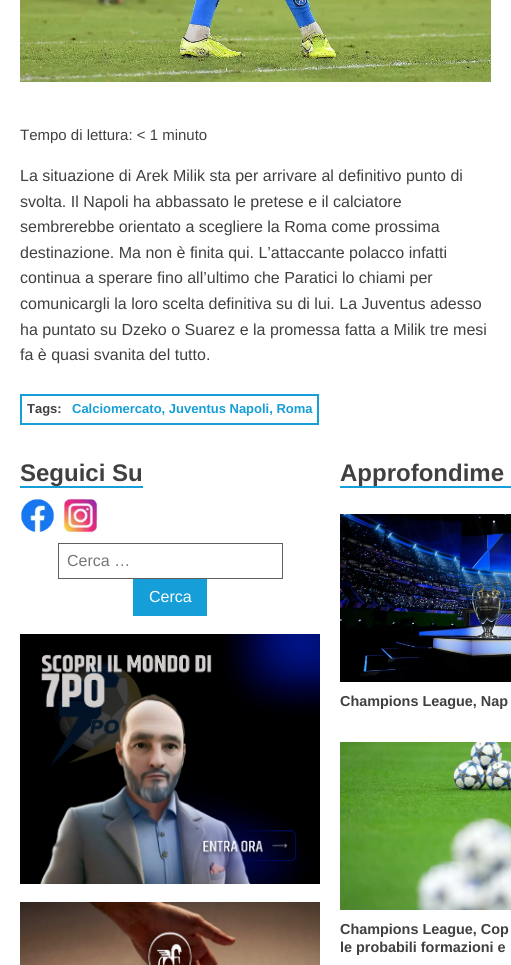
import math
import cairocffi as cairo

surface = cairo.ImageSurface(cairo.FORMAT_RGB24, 511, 965)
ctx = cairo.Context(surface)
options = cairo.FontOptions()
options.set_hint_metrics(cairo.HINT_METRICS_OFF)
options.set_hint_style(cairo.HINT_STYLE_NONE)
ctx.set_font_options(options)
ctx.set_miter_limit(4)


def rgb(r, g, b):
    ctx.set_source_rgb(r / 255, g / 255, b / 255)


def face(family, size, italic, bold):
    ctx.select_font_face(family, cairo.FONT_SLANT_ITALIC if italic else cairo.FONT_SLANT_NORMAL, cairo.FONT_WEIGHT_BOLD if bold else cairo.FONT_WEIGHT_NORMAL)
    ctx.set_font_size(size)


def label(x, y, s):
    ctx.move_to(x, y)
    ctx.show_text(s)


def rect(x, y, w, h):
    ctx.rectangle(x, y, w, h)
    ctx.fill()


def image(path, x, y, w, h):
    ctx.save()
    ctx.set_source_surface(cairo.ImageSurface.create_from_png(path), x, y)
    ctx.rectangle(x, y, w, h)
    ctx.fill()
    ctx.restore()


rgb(255, 255, 255)
ctx.paint()
image('image0.png', 20, 0, 471, 82)
face('Liberation Sans', 15, 0, 0)
rgb(64, 64, 64)
label(20, 140, 'Tempo di lettura: < 1 minuto')
face('Liberation Sans', 16, 0, 0)
label(20, 181, 'La situazione di Arek Milik sta per arrivare al definitivo punto di')
label(20, 207, 'svolta. Il Napoli ha abbassato le pretese e il calciatore')
label(20, 232, 'sembrerebbe orientato a scegliere la Roma come prossima')
label(20, 258, 'destinazione. Ma non è finita qui. L’attaccante polacco infatti')
label(20, 283, 'continua a sperare fino all’ultimo che Paratici lo chiami per')
label(20, 309, 'comunicargli la loro scelta definitiva su di lui. La Juventus adesso')
label(20, 335, 'ha puntato su Dzeko o Suarez e la promessa fatta a Milik tre mesi')
label(20, 360, 'fa è quasi svanita del tutto.')
ctx.rectangle(21, 395, 297, 29)
rgb(21, 158, 216)
ctx.stroke()
face('Liberation Sans', 13, 0, 1)
rgb(64, 64, 64)
label(27, 413, 'Tags:')
rgb(21, 158, 216)
label(72, 413, 'Calciomercato, Juventus Napoli, Roma')
rgb(22, 158, 216)
rect(20, 486, 123, 2)
face('Liberation Sans', 24, 0, 1)
rgb(64, 64, 64)
label(20, 481, 'Seguici Su')
image('image1.png', 21, 499, 33, 33)
image('image2.png', 63, 498, 35, 35)
ctx.rectangle(58.5, 543.5, 224, 35)
rgb(99, 94, 94)
ctx.set_line_width(1)
ctx.stroke()
face('Liberation Sans', 16, 0, 0)
rgb(117, 117, 117)
label(67, 566, 'Cerca …')
rgb(22, 158, 216)
rect(133, 579, 74, 37)
rgb(255, 255, 255)
label(149, 602, 'Cerca')
image('image3.png', 20, 634, 300, 250)
image('image4.png', 20, 902, 300, 63)
rgb(22, 158, 216)
rect(340, 486, 171, 2)
face('Liberation Sans', 24, 0, 1)
rgb(64, 64, 64)
label(340, 481, 'Approfondime')
image('image5.png', 340, 514, 171, 168)
face('Liberation Sans', 14.4, 0, 1)
label(340, 706, 'Champions League, Nap')
image('image6.png', 340, 742, 171, 168)
label(340, 934, 'Champions League, Cop')
label(340, 952, 'le probabili formazioni e')
surface.write_to_png('render.png')
